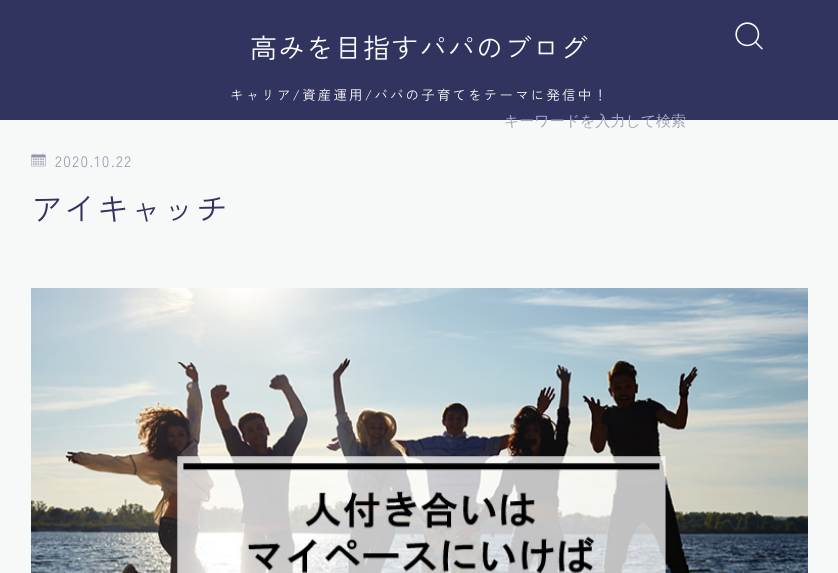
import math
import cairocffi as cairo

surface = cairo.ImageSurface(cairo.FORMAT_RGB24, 838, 573)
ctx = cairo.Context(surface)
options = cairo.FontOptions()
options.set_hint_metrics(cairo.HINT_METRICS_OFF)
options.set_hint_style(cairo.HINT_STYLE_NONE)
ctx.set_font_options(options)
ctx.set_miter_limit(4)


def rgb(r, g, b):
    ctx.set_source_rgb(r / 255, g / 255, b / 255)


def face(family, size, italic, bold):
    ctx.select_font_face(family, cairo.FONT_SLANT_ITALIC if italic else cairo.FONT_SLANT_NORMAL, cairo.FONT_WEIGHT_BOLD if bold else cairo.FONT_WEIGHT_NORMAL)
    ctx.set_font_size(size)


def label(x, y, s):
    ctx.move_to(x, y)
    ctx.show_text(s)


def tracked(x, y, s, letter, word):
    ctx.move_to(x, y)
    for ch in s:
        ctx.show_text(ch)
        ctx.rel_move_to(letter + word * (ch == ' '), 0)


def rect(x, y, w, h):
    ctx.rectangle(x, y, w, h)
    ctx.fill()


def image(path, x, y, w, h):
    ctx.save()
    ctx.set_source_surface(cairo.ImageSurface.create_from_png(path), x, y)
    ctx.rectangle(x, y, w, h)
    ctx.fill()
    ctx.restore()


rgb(247, 249, 249)
ctx.paint()
rgb(49, 52, 94)
rect(0, 0, 838, 120)
face('Zen Kaku Gothic New', 27, 0, 0)
rgb(255, 255, 255)
tracked(250, 58, '高みを目指すパパのブログ', 1.25, 0)
face('Zen Kaku Gothic New', 13.4, 0, 0)
tracked(230, 100, 'キャリア/資産運用/パパの子育てをテーマに発信中！', 2.25, 0)
image('image0.png', 735, 22, 28, 28)
face('WenQuanYi Zen Hei Medium', 15, 0, 0)
rgb(166, 168, 185)
label(504, 126, 'キーワードを入力して検索')
image('image1.png', 31, 153, 15, 14)
face('Zen Kaku Gothic New', 15, 0, 0)
rgb(148, 151, 172)
tracked(55, 167, '2020.10.22', 1.5, 0)
face('Zen Kaku Gothic New', 32, 0, 0)
rgb(49, 52, 94)
tracked(31, 221, 'アイキャッチ', 1, 0)
image('image2.png', 31, 288, 777, 285)
surface.write_to_png('render.png')
